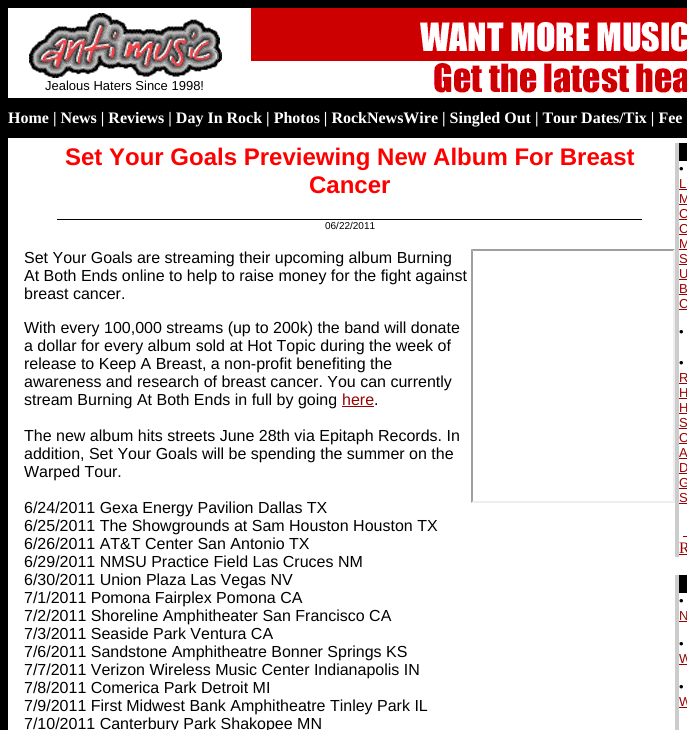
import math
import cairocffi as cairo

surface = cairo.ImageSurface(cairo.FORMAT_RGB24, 687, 730)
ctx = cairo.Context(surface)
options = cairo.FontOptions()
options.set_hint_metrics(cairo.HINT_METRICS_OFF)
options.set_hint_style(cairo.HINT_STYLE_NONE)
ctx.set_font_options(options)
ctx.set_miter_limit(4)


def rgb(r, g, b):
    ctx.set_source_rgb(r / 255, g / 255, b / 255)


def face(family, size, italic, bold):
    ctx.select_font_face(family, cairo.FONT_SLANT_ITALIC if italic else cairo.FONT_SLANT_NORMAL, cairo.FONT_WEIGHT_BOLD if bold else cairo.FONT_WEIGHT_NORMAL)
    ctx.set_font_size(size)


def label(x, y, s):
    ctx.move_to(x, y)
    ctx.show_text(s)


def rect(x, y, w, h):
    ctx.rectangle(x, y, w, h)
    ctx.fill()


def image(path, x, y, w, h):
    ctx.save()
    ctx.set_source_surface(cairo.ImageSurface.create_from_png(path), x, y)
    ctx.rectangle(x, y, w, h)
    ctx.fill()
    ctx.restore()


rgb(0, 0, 0)
ctx.paint()
rgb(255, 255, 255)
rect(8, 8, 679, 90)
image('image0.png', 29, 13, 193, 65)
face('Liberation Sans', 13, 0, 0)
rgb(0, 0, 0)
label(45, 90, 'Jealous Haters Since 1998!')
image('image1.png', 251, 8, 436, 85)
face('Liberation Serif', 16, 0, 1)
rgb(255, 255, 255)
label(8, 123, 'Home | News | Reviews | Day In Rock | Photos | RockNewsWire | Singled Out | Tour Dates/Tix | Fee')
rect(8, 138, 679, 592)
face('Liberation Sans', 24, 0, 1)
rgb(255, 0, 0)
label(65, 165, 'Set Your Goals Previewing New Album For Breast')
label(309, 193, 'Cancer')
rgb(0, 0, 0)
rect(57, 219, 585, 1)
face('Liberation Sans', 10, 0, 0)
label(325, 229, '06/22/2011')
face('Liberation Sans', 16, 0, 0)
label(24, 263, 'Set Your Goals are streaming their upcoming album Burning')
rgb(159, 159, 159)
ctx.new_path()
ctx.move_to(471, 249)
ctx.line_to(675, 249)
ctx.line_to(673, 251)
ctx.line_to(473, 251)
ctx.close_path()
ctx.fill()
rgb(238, 238, 238)
ctx.new_path()
ctx.move_to(675, 249)
ctx.line_to(675, 503)
ctx.line_to(673, 501)
ctx.line_to(673, 251)
ctx.close_path()
ctx.fill()
ctx.new_path()
ctx.move_to(675, 503)
ctx.line_to(471, 503)
ctx.line_to(473, 501)
ctx.line_to(673, 501)
ctx.close_path()
ctx.fill()
rgb(159, 159, 159)
ctx.new_path()
ctx.move_to(471, 503)
ctx.line_to(471, 249)
ctx.line_to(473, 251)
ctx.line_to(473, 501)
ctx.close_path()
ctx.fill()
rgb(0, 0, 0)
label(24, 281, 'At Both Ends online to help to raise money for the fight against')
label(24, 299, 'breast cancer.')
label(24, 333, 'With every 100,000 streams (up to 200k) the band will donate')
label(24, 351, 'a dollar for every album sold at Hot Topic during the week of')
label(24, 369, 'release to Keep A Breast, a non-profit benefiting the')
label(24, 387, 'awareness and research of breast cancer. You can currently')
label(24, 405, 'stream Burning At Both Ends in full by going')
rgb(153, 0, 0)
label(342, 405, 'here')
rgb(0, 0, 0)
label(374, 405, '.')
rgb(153, 0, 0)
rect(342, 406, 32, 1)
rgb(0, 0, 0)
label(24, 441, 'The new album hits streets June 28th via Epitaph Records. In')
label(24, 459, 'addition, Set Your Goals will be spending the summer on the')
label(24, 477, 'Warped Tour.')
label(24, 513, '6/24/2011 Gexa Energy Pavilion Dallas TX')
label(24, 531, '6/25/2011 The Showgrounds at Sam Houston Houston TX')
label(24, 549, '6/26/2011 AT&T Center San Antonio TX')
label(24, 567, '6/29/2011 NMSU Practice Field Las Cruces NM')
label(24, 585, '6/30/2011 Union Plaza Las Vegas NV')
label(24, 603, '7/1/2011 Pomona Fairplex Pomona CA')
label(24, 621, '7/2/2011 Shoreline Amphitheater San Francisco CA')
label(24, 639, '7/3/2011 Seaside Park Ventura CA')
label(24, 657, '7/6/2011 Sandstone Amphitheatre Bonner Springs KS')
label(24, 675, '7/7/2011 Verizon Wireless Music Center Indianapolis IN')
label(24, 693, '7/8/2011 Comerica Park Detroit MI')
label(24, 711, '7/9/2011 First Midwest Bank Amphitheatre Tinley Park IL')
label(24, 729, '7/10/2011 Canterbury Park Shakopee MN')
rgb(204, 204, 204)
rect(675, 143, 4, 414)
rgb(0, 0, 0)
rect(679, 143, 8, 18)
face('Liberation Sans', 13, 0, 0)
label(679, 173, '•')
rgb(153, 0, 0)
label(679, 188, 'L')
rect(679, 189, 8, 1)
label(679, 203, 'M')
rect(679, 204, 8, 1)
label(679, 218, 'C')
rect(679, 219, 8, 1)
label(679, 233, 'C')
rect(679, 234, 8, 1)
label(679, 248, 'M')
rect(679, 249, 8, 1)
label(679, 263, 'S')
rect(679, 264, 8, 1)
label(679, 278, 'U')
rect(679, 279, 8, 1)
label(679, 293, 'B')
rect(679, 294, 8, 1)
label(679, 308, 'C')
rect(679, 309, 8, 1)
rgb(0, 0, 0)
label(679, 336, '•')
label(679, 367, '•')
rgb(153, 0, 0)
label(679, 382, 'R')
rect(679, 383, 8, 1)
label(679, 397, 'H')
rect(679, 398, 8, 1)
label(679, 412, 'H')
rect(679, 413, 8, 1)
label(679, 427, 'S')
rect(679, 428, 8, 1)
label(679, 442, 'O')
rect(679, 443, 8, 1)
label(679, 457, 'A')
rect(679, 458, 8, 1)
label(679, 472, 'D')
rect(679, 473, 8, 1)
label(679, 487, 'G')
rect(679, 488, 8, 1)
label(679, 502, 'S')
rect(679, 503, 8, 1)
face('Liberation Serif', 16, 0, 0)
label(679, 553, 'R')
rect(683, 536, 4, 1)
rect(679, 554, 8, 1)
rgb(204, 204, 204)
rect(675, 575, 4, 155)
rgb(0, 0, 0)
rect(679, 575, 8, 18)
face('Liberation Sans', 13, 0, 0)
label(679, 605, '•')
rgb(153, 0, 0)
label(679, 620, 'N')
rect(679, 621, 8, 1)
rgb(0, 0, 0)
label(679, 648, '•')
rgb(153, 0, 0)
label(679, 663, 'W')
rect(679, 664, 8, 1)
rgb(0, 0, 0)
label(679, 691, '•')
rgb(153, 0, 0)
label(679, 706, 'W')
rect(679, 707, 8, 1)
surface.write_to_png('render.png')
